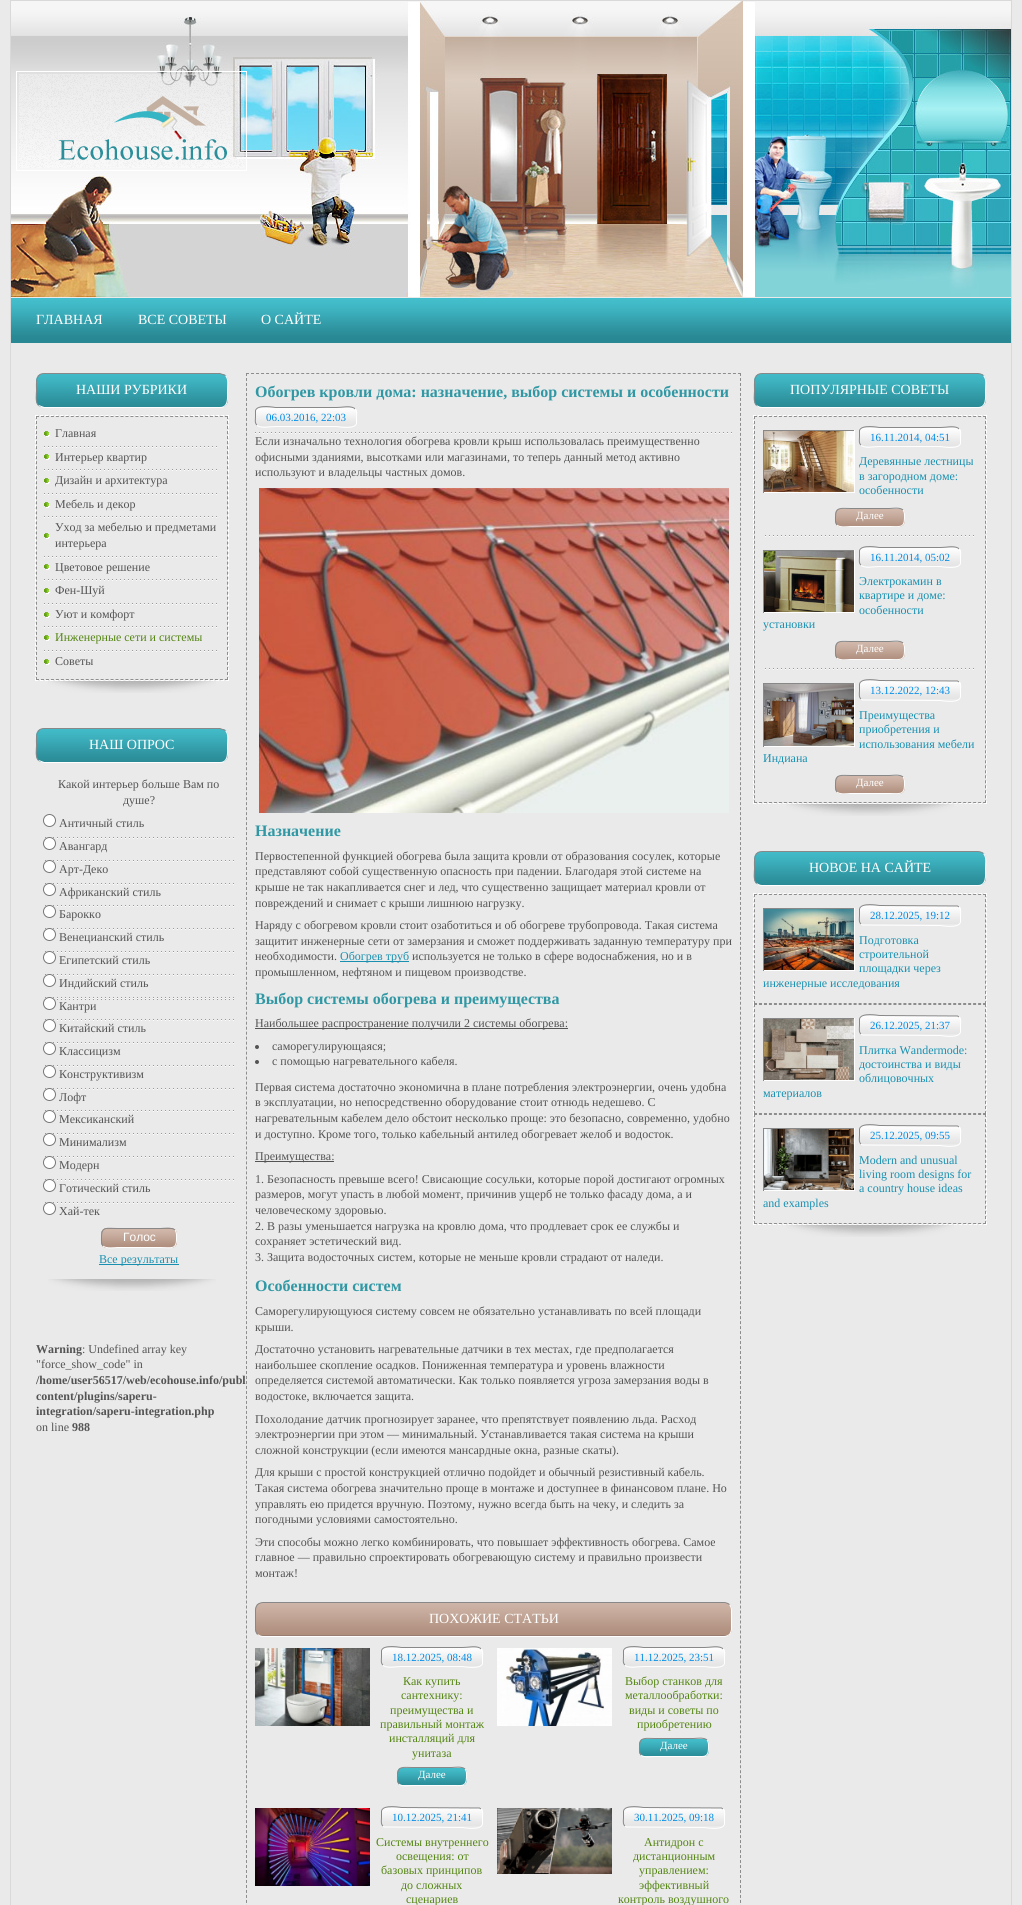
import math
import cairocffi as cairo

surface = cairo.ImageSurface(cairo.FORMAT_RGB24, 1022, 1905)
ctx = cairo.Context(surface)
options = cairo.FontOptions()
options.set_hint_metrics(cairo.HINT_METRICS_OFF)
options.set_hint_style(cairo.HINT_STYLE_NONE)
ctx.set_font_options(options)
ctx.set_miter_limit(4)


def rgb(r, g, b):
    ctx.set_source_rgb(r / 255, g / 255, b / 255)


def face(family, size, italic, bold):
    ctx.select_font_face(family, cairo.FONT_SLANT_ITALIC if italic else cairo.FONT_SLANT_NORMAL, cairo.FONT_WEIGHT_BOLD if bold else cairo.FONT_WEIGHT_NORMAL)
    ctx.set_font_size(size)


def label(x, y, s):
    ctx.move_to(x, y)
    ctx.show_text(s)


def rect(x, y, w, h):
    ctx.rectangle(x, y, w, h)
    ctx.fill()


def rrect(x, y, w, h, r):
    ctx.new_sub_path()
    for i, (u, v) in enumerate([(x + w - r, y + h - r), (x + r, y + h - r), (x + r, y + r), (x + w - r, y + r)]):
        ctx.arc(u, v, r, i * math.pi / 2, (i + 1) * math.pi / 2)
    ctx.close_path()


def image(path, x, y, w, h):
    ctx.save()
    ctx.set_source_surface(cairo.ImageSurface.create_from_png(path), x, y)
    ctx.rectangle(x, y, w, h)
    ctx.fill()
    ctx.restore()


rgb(234, 234, 234)
ctx.paint()
image('image0.png', 11, 1, 1000, 296)
ctx.rectangle(10.5, 0.5, 1001, 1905)
rgb(218, 217, 217)
ctx.set_line_width(1)
ctx.stroke()
image('image1.png', 16, 71, 231, 100)
image('image2.png', 11, 298, 1000, 45)
face('Liberation Serif', 14, 0, 0)
rgb(255, 255, 255)
label(36, 324, 'ГЛАВНАЯ')
label(138, 324, 'ВСЕ СОВЕТЫ')
label(261, 324, 'О САЙТЕ')
image('image3.png', 48, 681, 168, 12)
image('image4.png', 36, 374, 192, 33)
ctx.new_path()
ctx.move_to(225.5, 375.5)
ctx.curve_to(229, 379.5, 227.5, 386, 227.5, 390.5)
ctx.curve_to(227.5, 396.5, 229, 407.5, 220, 407.5)
ctx.line_to(44, 407.5)
ctx.line_to(40, 406)
ctx.line_to(38.5, 405.5)
ctx.stroke()
ctx.new_path()
ctx.move_to(38.5, 405.5)
ctx.curve_to(35, 401.5, 36.5, 395, 36.5, 390.5)
ctx.curve_to(36.5, 384.5, 35, 373.5, 44, 373.5)
ctx.line_to(220, 373.5)
ctx.line_to(224, 375)
ctx.line_to(225.5, 375.5)
rgb(136, 136, 136)
ctx.stroke()
rgb(255, 255, 255)
label(76, 394, 'НАШИ РУБРИКИ')
ctx.new_path()
ctx.move_to(36, 416.5)
ctx.line_to(228, 416.5)
rgb(141, 141, 141)
ctx.set_dash([3, 1.97])
ctx.stroke()
ctx.new_path()
ctx.move_to(227.5, 416)
ctx.line_to(227.5, 680)
ctx.set_dash([3, 2.02])
ctx.stroke()
ctx.new_path()
ctx.move_to(36, 679.5)
ctx.line_to(228, 679.5)
ctx.set_dash([3, 1.97])
ctx.stroke()
ctx.new_path()
ctx.move_to(36.5, 416)
ctx.line_to(36.5, 680)
ctx.set_dash([3, 2.02])
ctx.stroke()
ctx.new_path()
ctx.move_to(35, 415.5)
ctx.line_to(229, 415.5)
rgb(255, 255, 255)
ctx.set_dash([3, 2.03])
ctx.stroke()
ctx.new_path()
ctx.move_to(228.5, 415)
ctx.line_to(228.5, 681)
ctx.set_dash([3, 1.96])
ctx.stroke()
ctx.new_path()
ctx.move_to(35, 680.5)
ctx.line_to(229, 680.5)
ctx.set_dash([3, 2.03])
ctx.stroke()
ctx.new_path()
ctx.move_to(35.5, 415)
ctx.line_to(35.5, 681)
ctx.set_dash([3, 1.96])
ctx.stroke()
image('image5.png', 44, 431, 6, 6)
face('Liberation Serif', 12, 0, 0)
rgb(84, 84, 84)
label(55, 437, 'Главная')
image('image6.png', 44, 446, 173, 2)
image('image5.png', 44, 454, 6, 6)
label(55, 461, 'Интерьер квартир')
image('image6.png', 44, 469, 173, 2)
image('image5.png', 44, 478, 6, 6)
label(55, 484, 'Дизайн и архитектура')
image('image6.png', 44, 493, 173, 2)
image('image5.png', 44, 502, 6, 6)
label(55, 508, 'Мебель и декор')
image('image6.png', 44, 516, 173, 2)
image('image5.png', 44, 533, 6, 6)
label(55, 531, 'Уход за мебелью и предметами')
label(55, 547, 'интерьера')
image('image6.png', 44, 556, 173, 2)
image('image5.png', 44, 564, 6, 6)
label(55, 571, 'Цветовое решение')
image('image6.png', 44, 579, 173, 2)
image('image5.png', 44, 588, 6, 6)
label(55, 594, 'Фен-Шуй')
image('image6.png', 44, 603, 173, 2)
image('image5.png', 44, 612, 6, 6)
label(55, 618, 'Уют и комфорт')
image('image6.png', 44, 626, 173, 2)
image('image5.png', 44, 635, 6, 6)
rgb(84, 133, 18)
label(55, 641, 'Инженерные сети и системы')
image('image6.png', 44, 650, 173, 2)
image('image5.png', 44, 659, 6, 6)
rgb(84, 84, 84)
label(55, 665, 'Советы')
image('image3.png', 48, 1279, 168, 12)
image('image4.png', 36, 729, 192, 33)
ctx.new_path()
ctx.move_to(225.5, 730.5)
ctx.curve_to(229, 734.5, 227.5, 741, 227.5, 745.5)
ctx.curve_to(227.5, 751.5, 229, 762.5, 220, 762.5)
ctx.line_to(44, 762.5)
ctx.line_to(40, 761)
ctx.line_to(38.5, 760.5)
rgb(255, 255, 255)
ctx.set_dash([])
ctx.stroke()
ctx.new_path()
ctx.move_to(38.5, 760.5)
ctx.curve_to(35, 756.5, 36.5, 750, 36.5, 745.5)
ctx.curve_to(36.5, 739.5, 35, 728.5, 44, 728.5)
ctx.line_to(220, 728.5)
ctx.line_to(224, 730)
ctx.line_to(225.5, 730.5)
rgb(136, 136, 136)
ctx.stroke()
face('Liberation Serif', 14, 0, 0)
rgb(255, 255, 255)
label(89, 749, 'НАШ ОПРОС')
face('Liberation Serif', 12, 0, 0)
rgb(84, 84, 84)
label(58, 788, 'Какой интерьер больше Вам по')
label(123, 804, 'душе?')
rgb(255, 255, 255)
ctx.new_path()
ctx.arc(49.5, 820.5, 6, 0, 2 * math.pi)
ctx.fill_preserve()
rgb(118, 118, 118)
ctx.stroke()
rgb(84, 84, 84)
label(59, 827, 'Античный стиль')
image('image7.png', 45, 837, 189, 2)
rgb(255, 255, 255)
ctx.arc(49.5, 843.5, 6, 0, 2 * math.pi)
ctx.fill_preserve()
rgb(118, 118, 118)
ctx.stroke()
rgb(84, 84, 84)
label(59, 850, 'Авангард')
image('image7.png', 45, 860, 189, 2)
rgb(255, 255, 255)
ctx.arc(49.5, 866.5, 6, 0, 2 * math.pi)
ctx.fill_preserve()
rgb(118, 118, 118)
ctx.stroke()
rgb(84, 84, 84)
label(59, 873, 'Арт-Деко')
image('image7.png', 45, 883, 189, 2)
rgb(255, 255, 255)
ctx.arc(49.5, 889.5, 6, 0, 2 * math.pi)
ctx.fill_preserve()
rgb(118, 118, 118)
ctx.stroke()
rgb(84, 84, 84)
label(59, 896, 'Африканский стиль')
image('image7.png', 45, 905, 189, 2)
rgb(255, 255, 255)
ctx.arc(49.5, 911.5, 6, 0, 2 * math.pi)
ctx.fill_preserve()
rgb(118, 118, 118)
ctx.stroke()
rgb(84, 84, 84)
label(59, 918, 'Барокко')
image('image7.png', 45, 928, 189, 2)
rgb(255, 255, 255)
ctx.arc(49.5, 934.5, 6, 0, 2 * math.pi)
ctx.fill_preserve()
rgb(118, 118, 118)
ctx.stroke()
rgb(84, 84, 84)
label(59, 941, 'Венецианский стиль')
image('image7.png', 45, 951, 189, 2)
rgb(255, 255, 255)
ctx.arc(49.5, 957.5, 6, 0, 2 * math.pi)
ctx.fill_preserve()
rgb(118, 118, 118)
ctx.stroke()
rgb(84, 84, 84)
label(59, 964, 'Египетский стиль')
image('image7.png', 45, 974, 189, 2)
rgb(255, 255, 255)
ctx.arc(49.5, 980.5, 6, 0, 2 * math.pi)
ctx.fill_preserve()
rgb(118, 118, 118)
ctx.stroke()
rgb(84, 84, 84)
label(59, 987, 'Индийский стиль')
image('image8.png', 45, 997, 189, 3)
rgb(255, 255, 255)
ctx.arc(49.5, 1003.5, 6, 0, 2 * math.pi)
ctx.fill_preserve()
rgb(118, 118, 118)
ctx.stroke()
rgb(84, 84, 84)
label(59, 1010, 'Кантри')
image('image7.png', 45, 1019, 189, 2)
rgb(255, 255, 255)
ctx.arc(49.5, 1025.5, 6, 0, 2 * math.pi)
ctx.fill_preserve()
rgb(118, 118, 118)
ctx.stroke()
rgb(84, 84, 84)
label(59, 1032, 'Китайский стиль')
image('image7.png', 45, 1042, 189, 2)
rgb(255, 255, 255)
ctx.arc(49.5, 1048.5, 6, 0, 2 * math.pi)
ctx.fill_preserve()
rgb(118, 118, 118)
ctx.stroke()
rgb(84, 84, 84)
label(59, 1055, 'Классицизм')
image('image7.png', 45, 1065, 189, 2)
rgb(255, 255, 255)
ctx.arc(49.5, 1071.5, 6, 0, 2 * math.pi)
ctx.fill_preserve()
rgb(118, 118, 118)
ctx.stroke()
rgb(84, 84, 84)
label(59, 1078, 'Конструктивизм')
image('image7.png', 45, 1088, 189, 2)
rgb(255, 255, 255)
ctx.arc(49.5, 1094.5, 6, 0, 2 * math.pi)
ctx.fill_preserve()
rgb(118, 118, 118)
ctx.stroke()
rgb(84, 84, 84)
label(59, 1101, 'Лофт')
image('image7.png', 45, 1110, 189, 2)
rgb(255, 255, 255)
ctx.arc(49.5, 1116.5, 6, 0, 2 * math.pi)
ctx.fill_preserve()
rgb(118, 118, 118)
ctx.stroke()
rgb(84, 84, 84)
label(59, 1123, 'Мексиканский')
image('image7.png', 45, 1133, 189, 2)
rgb(255, 255, 255)
ctx.arc(49.5, 1139.5, 6, 0, 2 * math.pi)
ctx.fill_preserve()
rgb(118, 118, 118)
ctx.stroke()
rgb(84, 84, 84)
label(59, 1146, 'Минимализм')
image('image7.png', 45, 1156, 189, 2)
rgb(255, 255, 255)
ctx.arc(49.5, 1162.5, 6, 0, 2 * math.pi)
ctx.fill_preserve()
rgb(118, 118, 118)
ctx.stroke()
rgb(84, 84, 84)
label(59, 1169, 'Модерн')
image('image7.png', 45, 1179, 189, 2)
rgb(255, 255, 255)
ctx.arc(49.5, 1185.5, 6, 0, 2 * math.pi)
ctx.fill_preserve()
rgb(118, 118, 118)
ctx.stroke()
rgb(84, 84, 84)
label(59, 1192, 'Готический стиль')
image('image7.png', 45, 1202, 189, 2)
rgb(255, 255, 255)
ctx.arc(49.5, 1208.5, 6, 0, 2 * math.pi)
ctx.fill_preserve()
rgb(118, 118, 118)
ctx.stroke()
rgb(84, 84, 84)
label(59, 1215, 'Хай-тек')
rgb(174, 142, 125)
rrect(101, 1228, 76, 20, 6)
ctx.fill()
image('image9.png', 101, 1229, 76, 19)
ctx.new_path()
ctx.move_to(175, 1230)
ctx.curve_to(177, 1232.5, 176.5, 1236, 176.5, 1239)
ctx.curve_to(176.5, 1250, 171, 1247.5, 160.5, 1247.5)
ctx.line_to(117.5, 1247.5)
ctx.curve_to(115, 1247.5, 106.5, 1249, 103, 1246)
rgb(255, 255, 255)
ctx.stroke()
ctx.new_path()
ctx.move_to(103, 1246)
ctx.curve_to(101, 1243.5, 101.5, 1240, 101.5, 1237)
ctx.curve_to(101.5, 1226, 107, 1228.5, 117.5, 1228.5)
ctx.line_to(160.5, 1228.5)
ctx.curve_to(163, 1228.5, 171.5, 1227, 175, 1230)
rgb(136, 136, 136)
ctx.stroke()
face('Liberation Sans', 12, 0, 0)
rgb(255, 255, 255)
label(123, 1241, 'Голос')
rgb(25, 144, 176)
rect(99, 1264, 80, 1)
face('Liberation Serif', 12, 0, 0)
label(99, 1263, 'Все результаты')
face('Liberation Serif', 12, 0, 1)
rgb(84, 84, 84)
label(36, 1353, 'Warning')
face('Liberation Serif', 12, 0, 0)
label(82, 1353, ': Undefined array key')
label(36, 1368, '"force_show_code" in')
face('Liberation Serif', 12, 0, 1)
label(36, 1384, '/home/user56517/web/ecohouse.info/publ')
label(36, 1400, 'content/plugins/saperu-')
label(36, 1415, 'integration/saperu-integration.php')
face('Liberation Serif', 12, 0, 0)
label(36, 1431, 'on line')
face('Liberation Serif', 12, 0, 1)
label(72, 1431, '988')
ctx.new_path()
ctx.move_to(246, 373.5)
ctx.line_to(741, 373.5)
rgb(141, 141, 141)
ctx.set_dash([3, 2.02])
ctx.stroke()
ctx.new_path()
ctx.move_to(740.5, 373)
ctx.line_to(740.5, 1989)
ctx.set_dash([3, 1.99])
ctx.stroke()
ctx.new_path()
ctx.move_to(246.5, 373)
ctx.line_to(246.5, 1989)
ctx.stroke()
face('Liberation Serif', 16, 0, 1)
rgb(48, 152, 164)
label(255, 397, 'Обогрев кровли дома: назначение, выбор системы и особенности')
image('image10.png', 255, 432, 477, 2)
image('image11.png', 255, 408, 102, 18)
ctx.new_path()
ctx.move_to(355, 409)
ctx.curve_to(357.5, 411, 356.5, 414.5, 356.5, 417)
ctx.line_to(356.5, 423.5)
ctx.curve_to(354.5, 430, 337, 426.5, 336.5, 426.5)
ctx.line_to(275.5, 426.5)
ctx.curve_to(269.5, 426.5, 263, 428.5, 258, 426)
ctx.line_to(257, 425)
rgb(255, 255, 255)
ctx.set_dash([])
ctx.stroke()
ctx.new_path()
ctx.move_to(257, 425)
ctx.curve_to(254.5, 423, 255.5, 419.5, 255.5, 417)
ctx.line_to(255.5, 410.5)
ctx.curve_to(257.5, 404, 275, 407.5, 275.5, 407.5)
ctx.line_to(336.5, 407.5)
ctx.curve_to(342.5, 407.5, 349, 405.5, 354, 408)
ctx.line_to(355, 409)
rgb(136, 136, 136)
ctx.stroke()
face('Liberation Serif', 11, 0, 0)
rgb(0, 139, 231)
label(266, 421, '06.03.2016, 22:03')
face('Liberation Serif', 12, 0, 0)
rgb(84, 84, 84)
label(255, 445, 'Если изначально технология обогрева кровли крыш использовалась преимущественно')
label(255, 461, 'офисными зданиями, высотками или магазинами, то теперь данный метод активно')
label(255, 476, 'используют и владельцы частных домов.')
image('image12.png', 259, 488, 470, 325)
face('Liberation Serif', 16, 0, 1)
rgb(48, 152, 164)
label(255, 836, 'Назначение')
face('Liberation Serif', 12, 0, 0)
rgb(84, 84, 84)
label(255, 860, 'Первостепенной функцией обогрева была защита кровли от образования сосулек, которые')
label(255, 875, 'представляют собой существенную опасность при падении. Благодаря этой системе на')
label(255, 891, 'крыше не так накапливается снег и лед, что существенно защищает материал кровли от')
label(255, 907, 'повреждений и снимает с крыши лишнюю нагрузку.')
label(255, 929, 'Наряду с обогревом кровли стоит озаботиться и об обогреве трубопровода. Такая система')
label(255, 945, 'защитит инженерные сети от замерзания и сможет поддерживать заданную температуру при')
label(255, 960, 'необходимости.')
rgb(25, 144, 176)
rect(340, 961, 69, 1)
label(340, 960, 'Обогрев труб')
rgb(84, 84, 84)
label(412, 960, 'используется не только в сфере водоснабжения, но и в')
label(255, 976, 'промышленном, нефтяном и пищевом производстве.')
face('Liberation Serif', 16, 0, 1)
rgb(48, 152, 164)
label(255, 1004, 'Выбор системы обогрева и преимущества')
rgb(84, 84, 84)
rect(255, 1028, 313, 1)
face('Liberation Serif', 12, 0, 0)
label(255, 1027, 'Наибольшее распространение получили 2 системы обогрева:')
ctx.new_path()
ctx.arc(257, 1047, 2, 0, 2 * math.pi)
ctx.fill()
label(272, 1050, 'саморегулирующаяся;')
ctx.new_path()
ctx.arc(257, 1062, 2, 0, 2 * math.pi)
ctx.fill()
label(272, 1065, 'с помощью нагревательного кабеля.')
label(255, 1091, 'Первая система достаточно экономична в плане потребления электроэнергии, очень удобна')
label(255, 1106, 'в эксплуатации, но непосредственно оборудование стоит отнюдь недешево. С')
label(255, 1122, 'нагревательным кабелем дело обстоит несколько проще: это безопасно, современно, удобно')
label(255, 1138, 'и доступно. Кроме того, только кабельный антилед обогревает желоб и водосток.')
rect(255, 1161, 79, 1)
label(255, 1160, 'Преимущества:')
label(255, 1183, '1. Безопасность превыше всего! Свисающие сосульки, которые порой достигают огромных')
label(255, 1198, 'размеров, могут упасть в любой момент, причинив ущерб не только фасаду дома, а и')
label(255, 1214, 'человеческому здоровью.')
label(255, 1230, '2. В разы уменьшается нагрузка на кровлю дома, что продлевает срок ее службы и')
label(255, 1245, 'сохраняет эстетический вид.')
label(255, 1261, '3. Защита водосточных систем, которые не меньше кровли страдают от наледи.')
face('Liberation Serif', 16, 0, 1)
rgb(48, 152, 164)
label(255, 1291, 'Особенности систем')
face('Liberation Serif', 12, 0, 0)
rgb(84, 84, 84)
label(255, 1315, 'Саморегулирующуюся систему совсем не обязательно устанавливать по всей площади')
label(255, 1331, 'крыши.')
label(255, 1353, 'Достаточно установить нагревательные датчики в тех местах, где предполагается')
label(255, 1369, 'наибольшее скопление осадков. Пониженная температура и уровень влажности')
label(255, 1384, 'определяется системой автоматически. Как только появляется угроза замерзания воды в')
label(255, 1400, 'водостоке, включается защита.')
label(255, 1423, 'Похолодание датчик прогнозирует заранее, что препятствует появлению льда. Расход')
label(255, 1438, 'электроэнергии при этом — минимальный. Устанавливается такая система на крыши')
label(255, 1454, 'сложной конструкции (если имеются мансардные окна, разные скаты).')
label(255, 1476, 'Для крыши с простой конструкцией отлично подойдет и обычный резистивный кабель.')
label(255, 1492, 'Такая система обогрева значительно проще в монтаже и доступнее в финансовом плане. Но')
label(255, 1508, 'управлять ею придется вручную. Поэтому, нужно всегда быть на чеку, и следить за')
label(255, 1523, 'погодными условиями самостоятельно.')
label(255, 1546, 'Эти способы можно легко комбинировать, что повышает эффективность обогрева. Самое')
label(255, 1561, 'главное — правильно спроектировать обогревающую систему и правильно произвести')
label(255, 1577, 'монтаж!')
image('image13.png', 255, 1603, 477, 33)
ctx.new_path()
ctx.move_to(729.5, 1604.5)
ctx.curve_to(730.5, 1606, 731.5, 1608, 731.5, 1610)
ctx.line_to(731.5, 1629)
ctx.curve_to(731.5, 1631, 730.5, 1633, 729.5, 1634.5)
ctx.curve_to(728, 1635.5, 726, 1636.5, 724, 1636.5)
ctx.line_to(263, 1636.5)
ctx.curve_to(261, 1636.5, 259, 1635.5, 257.5, 1634.5)
rgb(255, 255, 255)
ctx.stroke()
ctx.new_path()
ctx.move_to(257.5, 1634.5)
ctx.curve_to(256.5, 1633, 255.5, 1631, 255.5, 1629)
ctx.line_to(255.5, 1610)
ctx.curve_to(255.5, 1608, 256.5, 1606, 257.5, 1604.5)
ctx.curve_to(259, 1603.5, 261, 1602.5, 263, 1602.5)
ctx.line_to(724, 1602.5)
ctx.curve_to(726, 1602.5, 728, 1603.5, 729.5, 1604.5)
rgb(136, 136, 136)
ctx.stroke()
face('Liberation Serif', 14, 0, 0)
rgb(255, 255, 255)
label(429, 1623, 'ПОХОЖИЕ СТАТЬИ')
image('image14.png', 255, 1648, 115, 78)
image('image11.png', 381, 1648, 102, 18)
ctx.new_path()
ctx.move_to(481, 1649)
ctx.curve_to(483.5, 1651, 482.5, 1654.5, 482.5, 1657)
ctx.line_to(482.5, 1663.5)
ctx.curve_to(480.5, 1670, 463, 1666.5, 462.5, 1666.5)
ctx.line_to(401.5, 1666.5)
ctx.curve_to(395.5, 1666.5, 389, 1668.5, 384, 1666)
ctx.line_to(383, 1665)
ctx.stroke()
ctx.new_path()
ctx.move_to(383, 1665)
ctx.curve_to(380.5, 1663, 381.5, 1659.5, 381.5, 1657)
ctx.line_to(381.5, 1650.5)
ctx.curve_to(383.5, 1644, 401, 1647.5, 401.5, 1647.5)
ctx.line_to(462.5, 1647.5)
ctx.curve_to(468.5, 1647.5, 475, 1645.5, 480, 1648)
ctx.line_to(481, 1649)
rgb(136, 136, 136)
ctx.stroke()
face('Liberation Serif', 11, 0, 0)
rgb(0, 139, 231)
label(392, 1661, '18.12.2025, 08:48')
face('Liberation Serif', 12, 0, 0)
rgb(84, 133, 18)
label(403, 1685, 'Как купить')
label(401, 1699, 'сантехнику:')
label(390, 1714, 'преимущества и')
label(380, 1728, 'правильный монтаж')
label(389, 1742, 'инсталляций для')
label(412, 1757, 'унитаза')
image('image15.png', 397, 1768, 70, 17)
ctx.new_path()
ctx.move_to(465, 1769)
ctx.curve_to(467, 1771.5, 466.5, 1774.5, 466.5, 1777)
ctx.curve_to(466.5, 1787.5, 461, 1785.5, 451.5, 1785.5)
ctx.line_to(412.5, 1785.5)
ctx.curve_to(410, 1785.5, 402, 1787, 399, 1784)
rgb(255, 255, 255)
ctx.stroke()
ctx.new_path()
ctx.move_to(399, 1784)
ctx.curve_to(397, 1781.5, 397.5, 1778.5, 397.5, 1776)
ctx.curve_to(397.5, 1765.5, 403, 1767.5, 412.5, 1767.5)
ctx.line_to(451.5, 1767.5)
ctx.curve_to(454, 1767.5, 462, 1766, 465, 1769)
rgb(136, 136, 136)
ctx.stroke()
face('Liberation Serif', 11, 0, 0)
rgb(255, 255, 255)
label(418, 1778, 'Далее')
image('image16.png', 497, 1648, 115, 78)
image('image11.png', 623, 1648, 102, 18)
ctx.new_path()
ctx.move_to(723, 1649)
ctx.curve_to(725.5, 1651, 724.5, 1654.5, 724.5, 1657)
ctx.line_to(724.5, 1663.5)
ctx.curve_to(722.5, 1670, 705, 1666.5, 704.5, 1666.5)
ctx.line_to(643.5, 1666.5)
ctx.curve_to(637.5, 1666.5, 631, 1668.5, 626, 1666)
ctx.line_to(625, 1665)
ctx.stroke()
ctx.new_path()
ctx.move_to(625, 1665)
ctx.curve_to(622.5, 1663, 623.5, 1659.5, 623.5, 1657)
ctx.line_to(623.5, 1650.5)
ctx.curve_to(625.5, 1644, 643, 1647.5, 643.5, 1647.5)
ctx.line_to(704.5, 1647.5)
ctx.curve_to(710.5, 1647.5, 717, 1645.5, 722, 1648)
ctx.line_to(723, 1649)
rgb(136, 136, 136)
ctx.stroke()
rgb(0, 139, 231)
label(634, 1661, '11.12.2025, 23:51')
face('Liberation Serif', 12, 0, 0)
rgb(84, 133, 18)
label(625, 1685, 'Выбор станков для')
label(625, 1699, 'металлообработки:')
label(629, 1714, 'виды и советы по')
label(637, 1728, 'приобретению')
image('image15.png', 639, 1739, 70, 17)
ctx.new_path()
ctx.move_to(707, 1740)
ctx.curve_to(709, 1742.5, 708.5, 1745.5, 708.5, 1748)
ctx.curve_to(708.5, 1758.5, 703, 1756.5, 693.5, 1756.5)
ctx.line_to(654.5, 1756.5)
ctx.curve_to(652, 1756.5, 644, 1758, 641, 1755)
rgb(255, 255, 255)
ctx.stroke()
ctx.new_path()
ctx.move_to(641, 1755)
ctx.curve_to(639, 1752.5, 639.5, 1749.5, 639.5, 1747)
ctx.curve_to(639.5, 1736.5, 645, 1738.5, 654.5, 1738.5)
ctx.line_to(693.5, 1738.5)
ctx.curve_to(696, 1738.5, 704, 1737, 707, 1740)
rgb(136, 136, 136)
ctx.stroke()
face('Liberation Serif', 11, 0, 0)
rgb(255, 255, 255)
label(660, 1749, 'Далее')
image('image17.png', 255, 1808, 115, 78)
image('image18.png', 381, 1808, 102, 18)
ctx.new_path()
ctx.move_to(481, 1809)
ctx.curve_to(483.5, 1811, 482.5, 1815, 482.5, 1817.5)
ctx.line_to(482.5, 1824)
ctx.curve_to(481, 1831, 463, 1827.5, 462.5, 1827.5)
ctx.line_to(384.5, 1827)
ctx.line_to(383, 1826)
ctx.stroke()
ctx.new_path()
ctx.move_to(383, 1826)
ctx.curve_to(380.5, 1824, 381.5, 1820, 381.5, 1817.5)
ctx.line_to(381.5, 1811)
ctx.curve_to(383, 1804, 401, 1807.5, 401.5, 1807.5)
ctx.line_to(479.5, 1808)
ctx.line_to(481, 1809)
rgb(136, 136, 136)
ctx.stroke()
rgb(0, 139, 231)
label(392, 1821, '10.12.2025, 21:41')
face('Liberation Serif', 12, 0, 0)
rgb(84, 133, 18)
label(376, 1846, 'Системы внутреннего')
label(396, 1860, 'освещения: от')
label(381, 1874, 'базовых принципов')
label(401, 1889, 'до сложных')
label(406, 1903, 'сценариев')
image('image19.png', 497, 1808, 115, 66)
image('image18.png', 623, 1808, 102, 18)
ctx.new_path()
ctx.move_to(723, 1809)
ctx.curve_to(725.5, 1811, 724.5, 1815, 724.5, 1817.5)
ctx.line_to(724.5, 1824)
ctx.curve_to(723, 1831, 705, 1827.5, 704.5, 1827.5)
ctx.line_to(626.5, 1827)
ctx.line_to(625, 1826)
rgb(255, 255, 255)
ctx.stroke()
ctx.new_path()
ctx.move_to(625, 1826)
ctx.curve_to(622.5, 1824, 623.5, 1820, 623.5, 1817.5)
ctx.line_to(623.5, 1811)
ctx.curve_to(625, 1804, 643, 1807.5, 643.5, 1807.5)
ctx.line_to(721.5, 1808)
ctx.line_to(723, 1809)
rgb(136, 136, 136)
ctx.stroke()
face('Liberation Serif', 11, 0, 0)
rgb(0, 139, 231)
label(634, 1821, '30.11.2025, 09:18')
face('Liberation Serif', 12, 0, 0)
rgb(84, 133, 18)
label(644, 1846, 'Антидрон с')
label(633, 1860, 'дистанционным')
label(639, 1874, 'управлением:')
label(639, 1889, 'эффективный')
label(618, 1903, 'контроль воздушного')
image('image3.png', 786, 804, 168, 12)
image('image20.png', 754, 374, 232, 33)
ctx.new_path()
ctx.move_to(983.5, 375.5)
ctx.curve_to(987, 379.5, 985.5, 386, 985.5, 390.5)
ctx.curve_to(985.5, 396.5, 987, 407.5, 978, 407.5)
ctx.line_to(762, 407.5)
ctx.curve_to(760, 407.5, 758, 406.5, 756.5, 405.5)
rgb(255, 255, 255)
ctx.stroke()
ctx.new_path()
ctx.move_to(756.5, 405.5)
ctx.curve_to(753, 401.5, 754.5, 395, 754.5, 390.5)
ctx.curve_to(754.5, 384.5, 753, 373.5, 762, 373.5)
ctx.line_to(978, 373.5)
ctx.curve_to(980, 373.5, 982, 374.5, 983.5, 375.5)
rgb(136, 136, 136)
ctx.stroke()
face('Liberation Serif', 14, 0, 0)
rgb(255, 255, 255)
label(790, 394, 'ПОПУЛЯРНЫЕ СОВЕТЫ')
ctx.new_path()
ctx.move_to(754, 416.5)
ctx.line_to(986, 416.5)
rgb(141, 141, 141)
ctx.set_dash([3, 1.98])
ctx.stroke()
ctx.new_path()
ctx.move_to(985.5, 416)
ctx.line_to(985.5, 803)
ctx.set_dash([3, 1.99])
ctx.stroke()
ctx.new_path()
ctx.move_to(754, 802.5)
ctx.line_to(986, 802.5)
ctx.set_dash([3, 1.98])
ctx.stroke()
ctx.new_path()
ctx.move_to(754.5, 416)
ctx.line_to(754.5, 803)
ctx.set_dash([3, 1.99])
ctx.stroke()
ctx.new_path()
ctx.move_to(753, 415.5)
ctx.line_to(987, 415.5)
rgb(255, 255, 255)
ctx.set_dash([3, 2.02])
ctx.stroke()
ctx.new_path()
ctx.move_to(986.5, 415)
ctx.line_to(986.5, 804)
ctx.set_dash([3, 2.01])
ctx.stroke()
ctx.new_path()
ctx.move_to(753, 803.5)
ctx.line_to(987, 803.5)
ctx.set_dash([3, 2.02])
ctx.stroke()
ctx.new_path()
ctx.move_to(753.5, 415)
ctx.line_to(753.5, 804)
ctx.set_dash([3, 2.01])
ctx.stroke()
rgb(136, 136, 136)
rect(763, 430, 92, 1)
rgb(255, 255, 255)
rect(854, 430, 1, 63)
rect(763, 492, 92, 1)
rgb(136, 136, 136)
rect(763, 430, 1, 63)
image('image21.png', 764, 431, 90, 61)
image('image11.png', 859, 428, 102, 18)
ctx.new_path()
ctx.move_to(959, 429)
ctx.curve_to(961.5, 431, 960.5, 434.5, 960.5, 437)
ctx.line_to(960.5, 443.5)
ctx.curve_to(958.5, 450, 941, 446.5, 940.5, 446.5)
ctx.line_to(879.5, 446.5)
ctx.curve_to(873.5, 446.5, 867, 448.5, 862, 446)
ctx.line_to(861, 445)
rgb(255, 255, 255)
ctx.set_dash([])
ctx.stroke()
ctx.new_path()
ctx.move_to(861, 445)
ctx.curve_to(858.5, 443, 859.5, 439.5, 859.5, 437)
ctx.line_to(859.5, 430.5)
ctx.curve_to(861.5, 424, 879, 427.5, 879.5, 427.5)
ctx.line_to(940.5, 427.5)
ctx.curve_to(946.5, 427.5, 953, 425.5, 958, 428)
ctx.line_to(959, 429)
rgb(136, 136, 136)
ctx.stroke()
face('Liberation Serif', 11, 0, 0)
rgb(0, 139, 231)
label(870, 441, '16.11.2014, 04:51')
face('Liberation Serif', 12, 0, 0)
rgb(25, 144, 176)
label(859, 465, 'Деревянные лестницы')
label(859, 480, 'в загородном доме:')
label(859, 494, 'особенности')
image('image22.png', 835, 509, 70, 18)
ctx.save()
ctx.rectangle(763, 503, 214, 24)
ctx.clip()
ctx.new_path()
ctx.move_to(903, 510)
ctx.curve_to(905, 512.5, 904.5, 515.5, 904.5, 518)
ctx.curve_to(904.5, 528.5, 899, 526.5, 889.5, 526.5)
ctx.line_to(850.5, 526.5)
ctx.curve_to(848, 526.5, 840, 528, 837, 525)
rgb(255, 255, 255)
ctx.stroke()
ctx.restore()
ctx.new_path()
ctx.move_to(837, 525)
ctx.curve_to(835, 522.5, 835.5, 519.5, 835.5, 517)
ctx.curve_to(835.5, 506.5, 841, 508.5, 850.5, 508.5)
ctx.line_to(889.5, 508.5)
ctx.curve_to(892, 508.5, 900, 507, 903, 510)
rgb(136, 136, 136)
ctx.stroke()
face('Liberation Serif', 11, 0, 0)
rgb(255, 255, 255)
label(856, 519, 'Далее')
image('image23.png', 765, 535, 209, 2)
rgb(136, 136, 136)
rect(763, 550, 92, 1)
rgb(255, 255, 255)
rect(854, 550, 1, 63)
rect(763, 612, 92, 1)
rgb(136, 136, 136)
rect(763, 550, 1, 63)
image('image24.png', 764, 551, 90, 61)
image('image11.png', 859, 548, 102, 18)
ctx.new_path()
ctx.move_to(959, 549)
ctx.curve_to(961.5, 551, 960.5, 554.5, 960.5, 557)
ctx.line_to(960.5, 563.5)
ctx.curve_to(958.5, 570, 941, 566.5, 940.5, 566.5)
ctx.line_to(879.5, 566.5)
ctx.curve_to(873.5, 566.5, 867, 568.5, 862, 566)
ctx.line_to(861, 565)
rgb(255, 255, 255)
ctx.stroke()
ctx.new_path()
ctx.move_to(861, 565)
ctx.curve_to(858.5, 563, 859.5, 559.5, 859.5, 557)
ctx.line_to(859.5, 550.5)
ctx.curve_to(861.5, 544, 879, 547.5, 879.5, 547.5)
ctx.line_to(940.5, 547.5)
ctx.curve_to(946.5, 547.5, 953, 545.5, 958, 548)
ctx.line_to(959, 549)
rgb(136, 136, 136)
ctx.stroke()
rgb(0, 139, 231)
label(870, 561, '16.11.2014, 05:02')
face('Liberation Serif', 12, 0, 0)
rgb(25, 144, 176)
label(859, 585, 'Электрокамин в')
label(859, 599, 'квартире и доме:')
label(859, 614, 'особенности')
label(763, 628, 'установки')
image('image22.png', 835, 642, 70, 18)
ctx.save()
ctx.rectangle(763, 636, 214, 24)
ctx.clip()
ctx.new_path()
ctx.move_to(903, 643)
ctx.curve_to(905, 645.5, 904.5, 648.5, 904.5, 651)
ctx.curve_to(904.5, 661.5, 899, 659.5, 889.5, 659.5)
ctx.line_to(850.5, 659.5)
ctx.curve_to(848, 659.5, 840, 661, 837, 658)
rgb(255, 255, 255)
ctx.stroke()
ctx.restore()
ctx.new_path()
ctx.move_to(837, 658)
ctx.curve_to(835, 655.5, 835.5, 652.5, 835.5, 650)
ctx.curve_to(835.5, 639.5, 841, 641.5, 850.5, 641.5)
ctx.line_to(889.5, 641.5)
ctx.curve_to(892, 641.5, 900, 640, 903, 643)
rgb(136, 136, 136)
ctx.stroke()
face('Liberation Serif', 11, 0, 0)
rgb(255, 255, 255)
label(856, 652, 'Далее')
image('image23.png', 765, 668, 209, 2)
rgb(136, 136, 136)
rect(763, 683, 92, 1)
rgb(255, 255, 255)
rect(854, 683, 1, 64)
rect(763, 746, 92, 1)
rgb(136, 136, 136)
rect(763, 683, 1, 64)
image('image25.png', 764, 684, 90, 62)
image('image18.png', 859, 681, 102, 18)
ctx.new_path()
ctx.move_to(959, 682)
ctx.curve_to(961.5, 684, 960.5, 688, 960.5, 690.5)
ctx.line_to(960.5, 697)
ctx.curve_to(959, 704, 941, 700.5, 940.5, 700.5)
ctx.line_to(862.5, 700)
ctx.line_to(861, 699)
rgb(255, 255, 255)
ctx.stroke()
ctx.new_path()
ctx.move_to(861, 699)
ctx.curve_to(858.5, 697, 859.5, 693, 859.5, 690.5)
ctx.line_to(859.5, 684)
ctx.curve_to(861, 677, 879, 680.5, 879.5, 680.5)
ctx.line_to(957.5, 681)
ctx.line_to(959, 682)
rgb(136, 136, 136)
ctx.stroke()
rgb(0, 139, 231)
label(870, 694, '13.12.2022, 12:43')
face('Liberation Serif', 12, 0, 0)
rgb(25, 144, 176)
label(859, 719, 'Преимущества')
label(859, 733, 'приобретения и')
label(859, 748, 'использования мебели')
label(763, 762, 'Индиана')
image('image22.png', 835, 776, 70, 18)
ctx.save()
ctx.rectangle(763, 770, 214, 24)
ctx.clip()
ctx.new_path()
ctx.move_to(903, 777)
ctx.curve_to(905, 779.5, 904.5, 782.5, 904.5, 785)
ctx.curve_to(904.5, 795.5, 899, 793.5, 889.5, 793.5)
ctx.line_to(850.5, 793.5)
ctx.curve_to(848, 793.5, 840, 795, 837, 792)
rgb(255, 255, 255)
ctx.stroke()
ctx.restore()
ctx.new_path()
ctx.move_to(837, 792)
ctx.curve_to(835, 789.5, 835.5, 786.5, 835.5, 784)
ctx.curve_to(835.5, 773.5, 841, 775.5, 850.5, 775.5)
ctx.line_to(889.5, 775.5)
ctx.curve_to(892, 775.5, 900, 774, 903, 777)
rgb(136, 136, 136)
ctx.stroke()
face('Liberation Serif', 11, 0, 0)
rgb(255, 255, 255)
label(856, 786, 'Далее')
image('image3.png', 786, 1225, 168, 12)
image('image20.png', 754, 852, 232, 33)
ctx.new_path()
ctx.move_to(983.5, 853.5)
ctx.curve_to(987, 857.5, 985.5, 864, 985.5, 868.5)
ctx.curve_to(985.5, 874.5, 987, 885.5, 978, 885.5)
ctx.line_to(762, 885.5)
ctx.curve_to(760, 885.5, 758, 884.5, 756.5, 883.5)
ctx.stroke()
ctx.new_path()
ctx.move_to(756.5, 883.5)
ctx.curve_to(753, 879.5, 754.5, 873, 754.5, 868.5)
ctx.curve_to(754.5, 862.5, 753, 851.5, 762, 851.5)
ctx.line_to(978, 851.5)
ctx.curve_to(980, 851.5, 982, 852.5, 983.5, 853.5)
rgb(136, 136, 136)
ctx.stroke()
face('Liberation Serif', 14, 0, 0)
rgb(255, 255, 255)
label(809, 872, 'НОВОЕ НА САЙТЕ')
ctx.new_path()
ctx.move_to(754, 894.5)
ctx.line_to(986, 894.5)
rgb(141, 141, 141)
ctx.set_dash([3, 1.98])
ctx.stroke()
ctx.new_path()
ctx.move_to(985.5, 894)
ctx.line_to(985.5, 1004)
ctx.set_dash([3, 2.1])
ctx.stroke()
ctx.new_path()
ctx.move_to(754, 1003.5)
ctx.line_to(986, 1003.5)
ctx.set_dash([3, 1.98])
ctx.stroke()
ctx.new_path()
ctx.move_to(754.5, 894)
ctx.line_to(754.5, 1004)
ctx.set_dash([3, 2.1])
ctx.stroke()
ctx.new_path()
ctx.move_to(753, 893.5)
ctx.line_to(987, 893.5)
rgb(255, 255, 255)
ctx.set_dash([3, 2.02])
ctx.stroke()
ctx.new_path()
ctx.move_to(986.5, 893)
ctx.line_to(986.5, 1005)
ctx.set_dash([3, 1.95])
ctx.stroke()
ctx.new_path()
ctx.move_to(753.5, 893)
ctx.line_to(753.5, 1005)
ctx.stroke()
rgb(136, 136, 136)
rect(763, 908, 92, 1)
rgb(255, 255, 255)
rect(854, 908, 1, 63)
rect(763, 970, 92, 1)
rgb(136, 136, 136)
rect(763, 908, 1, 63)
image('image26.png', 764, 909, 90, 61)
image('image18.png', 859, 906, 102, 18)
ctx.new_path()
ctx.move_to(959, 907)
ctx.curve_to(961.5, 909, 960.5, 913, 960.5, 915.5)
ctx.line_to(960.5, 922)
ctx.curve_to(959, 929, 941, 925.5, 940.5, 925.5)
ctx.line_to(862.5, 925)
ctx.line_to(861, 924)
rgb(255, 255, 255)
ctx.set_dash([])
ctx.stroke()
ctx.new_path()
ctx.move_to(861, 924)
ctx.curve_to(858.5, 922, 859.5, 918, 859.5, 915.5)
ctx.line_to(859.5, 909)
ctx.curve_to(861, 902, 879, 905.5, 879.5, 905.5)
ctx.line_to(957.5, 906)
ctx.line_to(959, 907)
rgb(136, 136, 136)
ctx.stroke()
face('Liberation Serif', 11, 0, 0)
rgb(0, 139, 231)
label(870, 919, '28.12.2025, 19:12')
face('Liberation Serif', 12, 0, 0)
rgb(25, 144, 176)
label(859, 944, 'Подготовка')
label(859, 958, 'строительной')
label(859, 972, 'площадки через')
label(763, 987, 'инженерные исследования')
ctx.new_path()
ctx.move_to(754, 1004.5)
ctx.line_to(986, 1004.5)
rgb(141, 141, 141)
ctx.set_dash([3, 1.98])
ctx.stroke()
ctx.new_path()
ctx.move_to(985.5, 1004)
ctx.line_to(985.5, 1114)
ctx.set_dash([3, 2.1])
ctx.stroke()
ctx.new_path()
ctx.move_to(754, 1113.5)
ctx.line_to(986, 1113.5)
ctx.set_dash([3, 1.98])
ctx.stroke()
ctx.new_path()
ctx.move_to(754.5, 1004)
ctx.line_to(754.5, 1114)
ctx.set_dash([3, 2.1])
ctx.stroke()
ctx.new_path()
ctx.move_to(986.5, 1003)
ctx.line_to(986.5, 1115)
rgb(255, 255, 255)
ctx.set_dash([3, 1.95])
ctx.stroke()
ctx.new_path()
ctx.move_to(753.5, 1003)
ctx.line_to(753.5, 1115)
ctx.stroke()
rgb(136, 136, 136)
rect(763, 1018, 92, 1)
rgb(255, 255, 255)
rect(854, 1018, 1, 63)
rect(763, 1080, 92, 1)
rgb(136, 136, 136)
rect(763, 1018, 1, 63)
image('image27.png', 764, 1019, 90, 61)
image('image28.png', 859, 1016, 102, 18)
ctx.new_path()
ctx.move_to(959, 1017)
ctx.curve_to(961.5, 1019, 960.5, 1023, 960.5, 1025.5)
ctx.line_to(960.5, 1032)
ctx.curve_to(959, 1039, 941, 1035.5, 940.5, 1035.5)
ctx.line_to(862.5, 1035)
ctx.line_to(861, 1034)
rgb(255, 255, 255)
ctx.set_dash([])
ctx.stroke()
ctx.new_path()
ctx.move_to(861, 1034)
ctx.curve_to(858.5, 1032, 859.5, 1028, 859.5, 1025.5)
ctx.line_to(859.5, 1019)
ctx.curve_to(861, 1012, 879, 1015.5, 879.5, 1015.5)
ctx.line_to(957.5, 1016)
ctx.line_to(959, 1017)
rgb(136, 136, 136)
ctx.stroke()
face('Liberation Serif', 11, 0, 0)
rgb(0, 139, 231)
label(870, 1029, '26.12.2025, 21:37')
face('Liberation Serif', 12, 0, 0)
rgb(25, 144, 176)
label(859, 1054, 'Плитка Wandermode:')
label(859, 1068, 'достоинства и виды')
label(859, 1082, 'облицовочных')
label(763, 1097, 'материалов')
ctx.new_path()
ctx.move_to(754, 1114.5)
ctx.line_to(986, 1114.5)
rgb(141, 141, 141)
ctx.set_dash([3, 1.98])
ctx.stroke()
ctx.new_path()
ctx.move_to(985.5, 1114)
ctx.line_to(985.5, 1224)
ctx.set_dash([3, 2.1])
ctx.stroke()
ctx.new_path()
ctx.move_to(754, 1223.5)
ctx.line_to(986, 1223.5)
ctx.set_dash([3, 1.98])
ctx.stroke()
ctx.new_path()
ctx.move_to(754.5, 1114)
ctx.line_to(754.5, 1224)
ctx.set_dash([3, 2.1])
ctx.stroke()
ctx.new_path()
ctx.move_to(986.5, 1113)
ctx.line_to(986.5, 1225)
rgb(255, 255, 255)
ctx.set_dash([3, 1.95])
ctx.stroke()
ctx.new_path()
ctx.move_to(753, 1224.5)
ctx.line_to(987, 1224.5)
ctx.set_dash([3, 2.02])
ctx.stroke()
ctx.new_path()
ctx.move_to(753.5, 1113)
ctx.line_to(753.5, 1225)
ctx.set_dash([3, 1.95])
ctx.stroke()
rgb(136, 136, 136)
rect(763, 1128, 92, 1)
rgb(255, 255, 255)
rect(854, 1128, 1, 63)
rect(763, 1190, 92, 1)
rgb(136, 136, 136)
rect(763, 1128, 1, 63)
image('image29.png', 764, 1129, 90, 61)
image('image18.png', 859, 1126, 102, 18)
ctx.new_path()
ctx.move_to(959, 1127)
ctx.curve_to(961.5, 1129, 960.5, 1133, 960.5, 1135.5)
ctx.line_to(960.5, 1142)
ctx.curve_to(959, 1149, 941, 1145.5, 940.5, 1145.5)
ctx.line_to(862.5, 1145)
ctx.line_to(861, 1144)
rgb(255, 255, 255)
ctx.set_dash([])
ctx.stroke()
ctx.new_path()
ctx.move_to(861, 1144)
ctx.curve_to(858.5, 1142, 859.5, 1138, 859.5, 1135.5)
ctx.line_to(859.5, 1129)
ctx.curve_to(861, 1122, 879, 1125.5, 879.5, 1125.5)
ctx.line_to(957.5, 1126)
ctx.line_to(959, 1127)
rgb(136, 136, 136)
ctx.stroke()
face('Liberation Serif', 11, 0, 0)
rgb(0, 139, 231)
label(870, 1139, '25.12.2025, 09:55')
face('Liberation Serif', 12, 0, 0)
rgb(25, 144, 176)
label(859, 1164, 'Modern and unusual')
label(859, 1178, 'living room designs for')
label(859, 1192, 'a country house ideas')
label(763, 1207, 'and examples')
surface.write_to_png('render.png')
